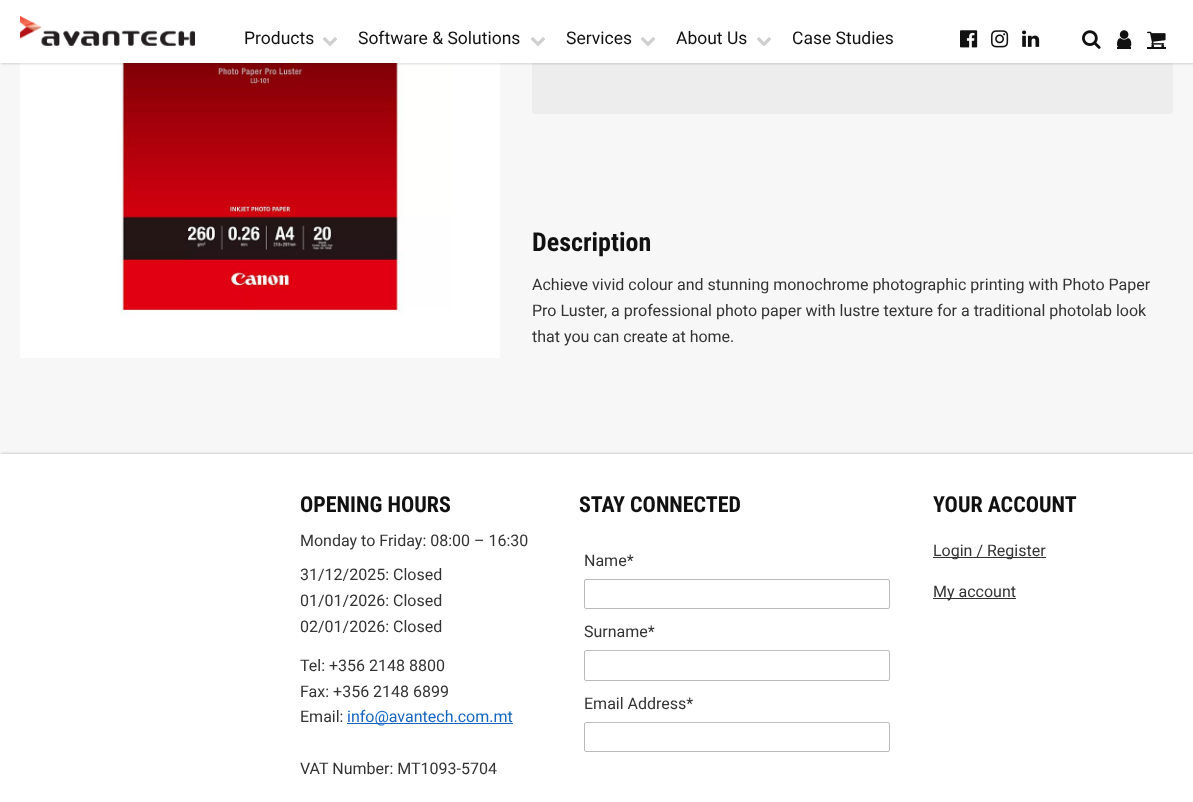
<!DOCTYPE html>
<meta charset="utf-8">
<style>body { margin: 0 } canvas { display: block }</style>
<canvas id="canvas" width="1193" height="802"></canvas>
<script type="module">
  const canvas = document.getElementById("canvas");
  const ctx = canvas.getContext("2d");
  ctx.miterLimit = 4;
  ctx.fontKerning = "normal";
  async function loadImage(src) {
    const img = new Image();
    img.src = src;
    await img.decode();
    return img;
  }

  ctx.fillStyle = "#f7f7f7";
  ctx.fillRect(0, 0, 1193, 802);
  ctx.drawImage(await loadImage("img9.png"), 20, 63, 480, 295);
  ctx.fillStyle = "#ededed";
  ctx.beginPath();
  ctx.roundRect(532, -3, 641, 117, 3);
  ctx.fill();
  ctx.fillStyle = "rgba(0, 0, 0, 0.15)";
  ctx.filter = "blur(1px)";
  ctx.beginPath();
  ctx.rect(1, 1, 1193, 63);
  ctx.fill();
  ctx.filter = "none";
  ctx.fillStyle = "#ffffff";
  ctx.fillRect(0, 0, 1193, 63);
  ctx.drawImage(await loadImage("img1.png"), 20, 16, 175, 30);
  ctx.font = "17.5px Roboto";
  ctx.fillStyle = "#111111";
  ctx.fillText("Products", 244, 44);
  ctx.drawImage(await loadImage("img2.png"), 323, 37, 14, 9);
  ctx.fillText("Software & Solutions", 358, 44);
  ctx.drawImage(await loadImage("img2.png"), 531, 37, 14, 9);
  ctx.fillText("Services", 566, 44);
  ctx.drawImage(await loadImage("img2.png"), 641, 37, 14, 9);
  ctx.fillText("About Us", 676, 44);
  ctx.drawImage(await loadImage("img2.png"), 757, 37, 14, 9);
  ctx.fillText("Case Studies", 792, 44);
  ctx.drawImage(await loadImage("img3.png"), 960, 30, 18, 18);
  ctx.drawImage(await loadImage("img4.png"), 991, 30, 18, 18);
  ctx.drawImage(await loadImage("img5.png"), 1022, 30, 18, 17);
  ctx.drawImage(await loadImage("img6.png"), 1082, 30, 19, 19);
  ctx.drawImage(await loadImage("img7.png"), 1117, 30, 15, 17);
  ctx.fillRect(1117, 47, 14, 2);
  ctx.drawImage(await loadImage("img8.png"), 1147, 31, 19, 16);
  ctx.fillRect(1147, 47, 19, 2);
  ctx.font = "bold 26px Roboto Condensed";
  ctx.fillText("Description", 532, 251);
  ctx.font = "16px Roboto";
  ctx.fillStyle = "#333333";
  ctx.fillText("Achieve vivid colour and stunning monochrome photographic printing with Photo Paper", 532, 290);
  ctx.fillText("Pro Luster, a professional photo paper with lustre texture for a traditional photolab look", 532, 316);
  ctx.fillText("that you can create at home.", 532, 342);
  ctx.fillStyle = "rgba(0, 0, 0, 0.15)";
  ctx.filter = "blur(1px)";
  ctx.beginPath();
  ctx.rect(1, 453, 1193, 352);
  ctx.fill();
  ctx.filter = "none";
  ctx.fillStyle = "#ffffff";
  ctx.fillRect(0, 454, 1193, 348);
  ctx.font = "bold 22px Roboto Condensed";
  ctx.fillStyle = "#111111";
  ctx.fillText("OPENING HOURS", 300, 512);
  ctx.font = "16px Roboto";
  ctx.fillStyle = "#333333";
  ctx.fillText("Monday to Friday: 08:00 – 16:30", 300, 546);
  ctx.fillText("31/12/2025: Closed", 300, 580);
  ctx.fillText("01/01/2026: Closed", 300, 606);
  ctx.fillText("02/01/2026: Closed", 300, 632);
  ctx.fillText("Tel: +356 2148 8800", 300, 671);
  ctx.fillText("Fax: +356 2148 6899", 300, 697);
  ctx.fillText("Email:", 300, 722);
  ctx.fillStyle = "#1565c0";
  ctx.fillRect(347, 723, 166, 1);
  ctx.fillText("info@avantech.com.mt", 347, 722);
  ctx.fillStyle = "#333333";
  ctx.fillText("VAT Number: MT1093-5704", 300, 774);
  ctx.font = "bold 22px Roboto Condensed";
  ctx.fillStyle = "#111111";
  ctx.fillText("STAY CONNECTED", 579, 512);
  ctx.font = "16px Roboto";
  ctx.fillStyle = "#333333";
  ctx.fillText("Name*", 584, 566);
  ctx.beginPath();
  ctx.roundRect(584.5, 579.5, 305, 29, 1.5);
  ctx.strokeStyle = "#bbbbbb";
  ctx.stroke();
  ctx.fillText("Surname*", 584, 637);
  ctx.beginPath();
  ctx.roundRect(584.5, 650.5, 305, 30, 1.5);
  ctx.stroke();
  ctx.fillText("Email Address*", 584, 709);
  ctx.beginPath();
  ctx.roundRect(584.5, 722.5, 305, 29, 1.5);
  ctx.stroke();
  ctx.font = "bold 22px Roboto Condensed";
  ctx.fillStyle = "#111111";
  ctx.fillText("YOUR ACCOUNT", 933, 512);
  ctx.fillStyle = "#333333";
  ctx.fillRect(933, 557, 113, 1);
  ctx.font = "16px Roboto";
  ctx.fillText("Login / Register", 933, 556);
  ctx.fillRect(933, 598, 83, 1);
  ctx.fillText("My account", 933, 597);
</script>
